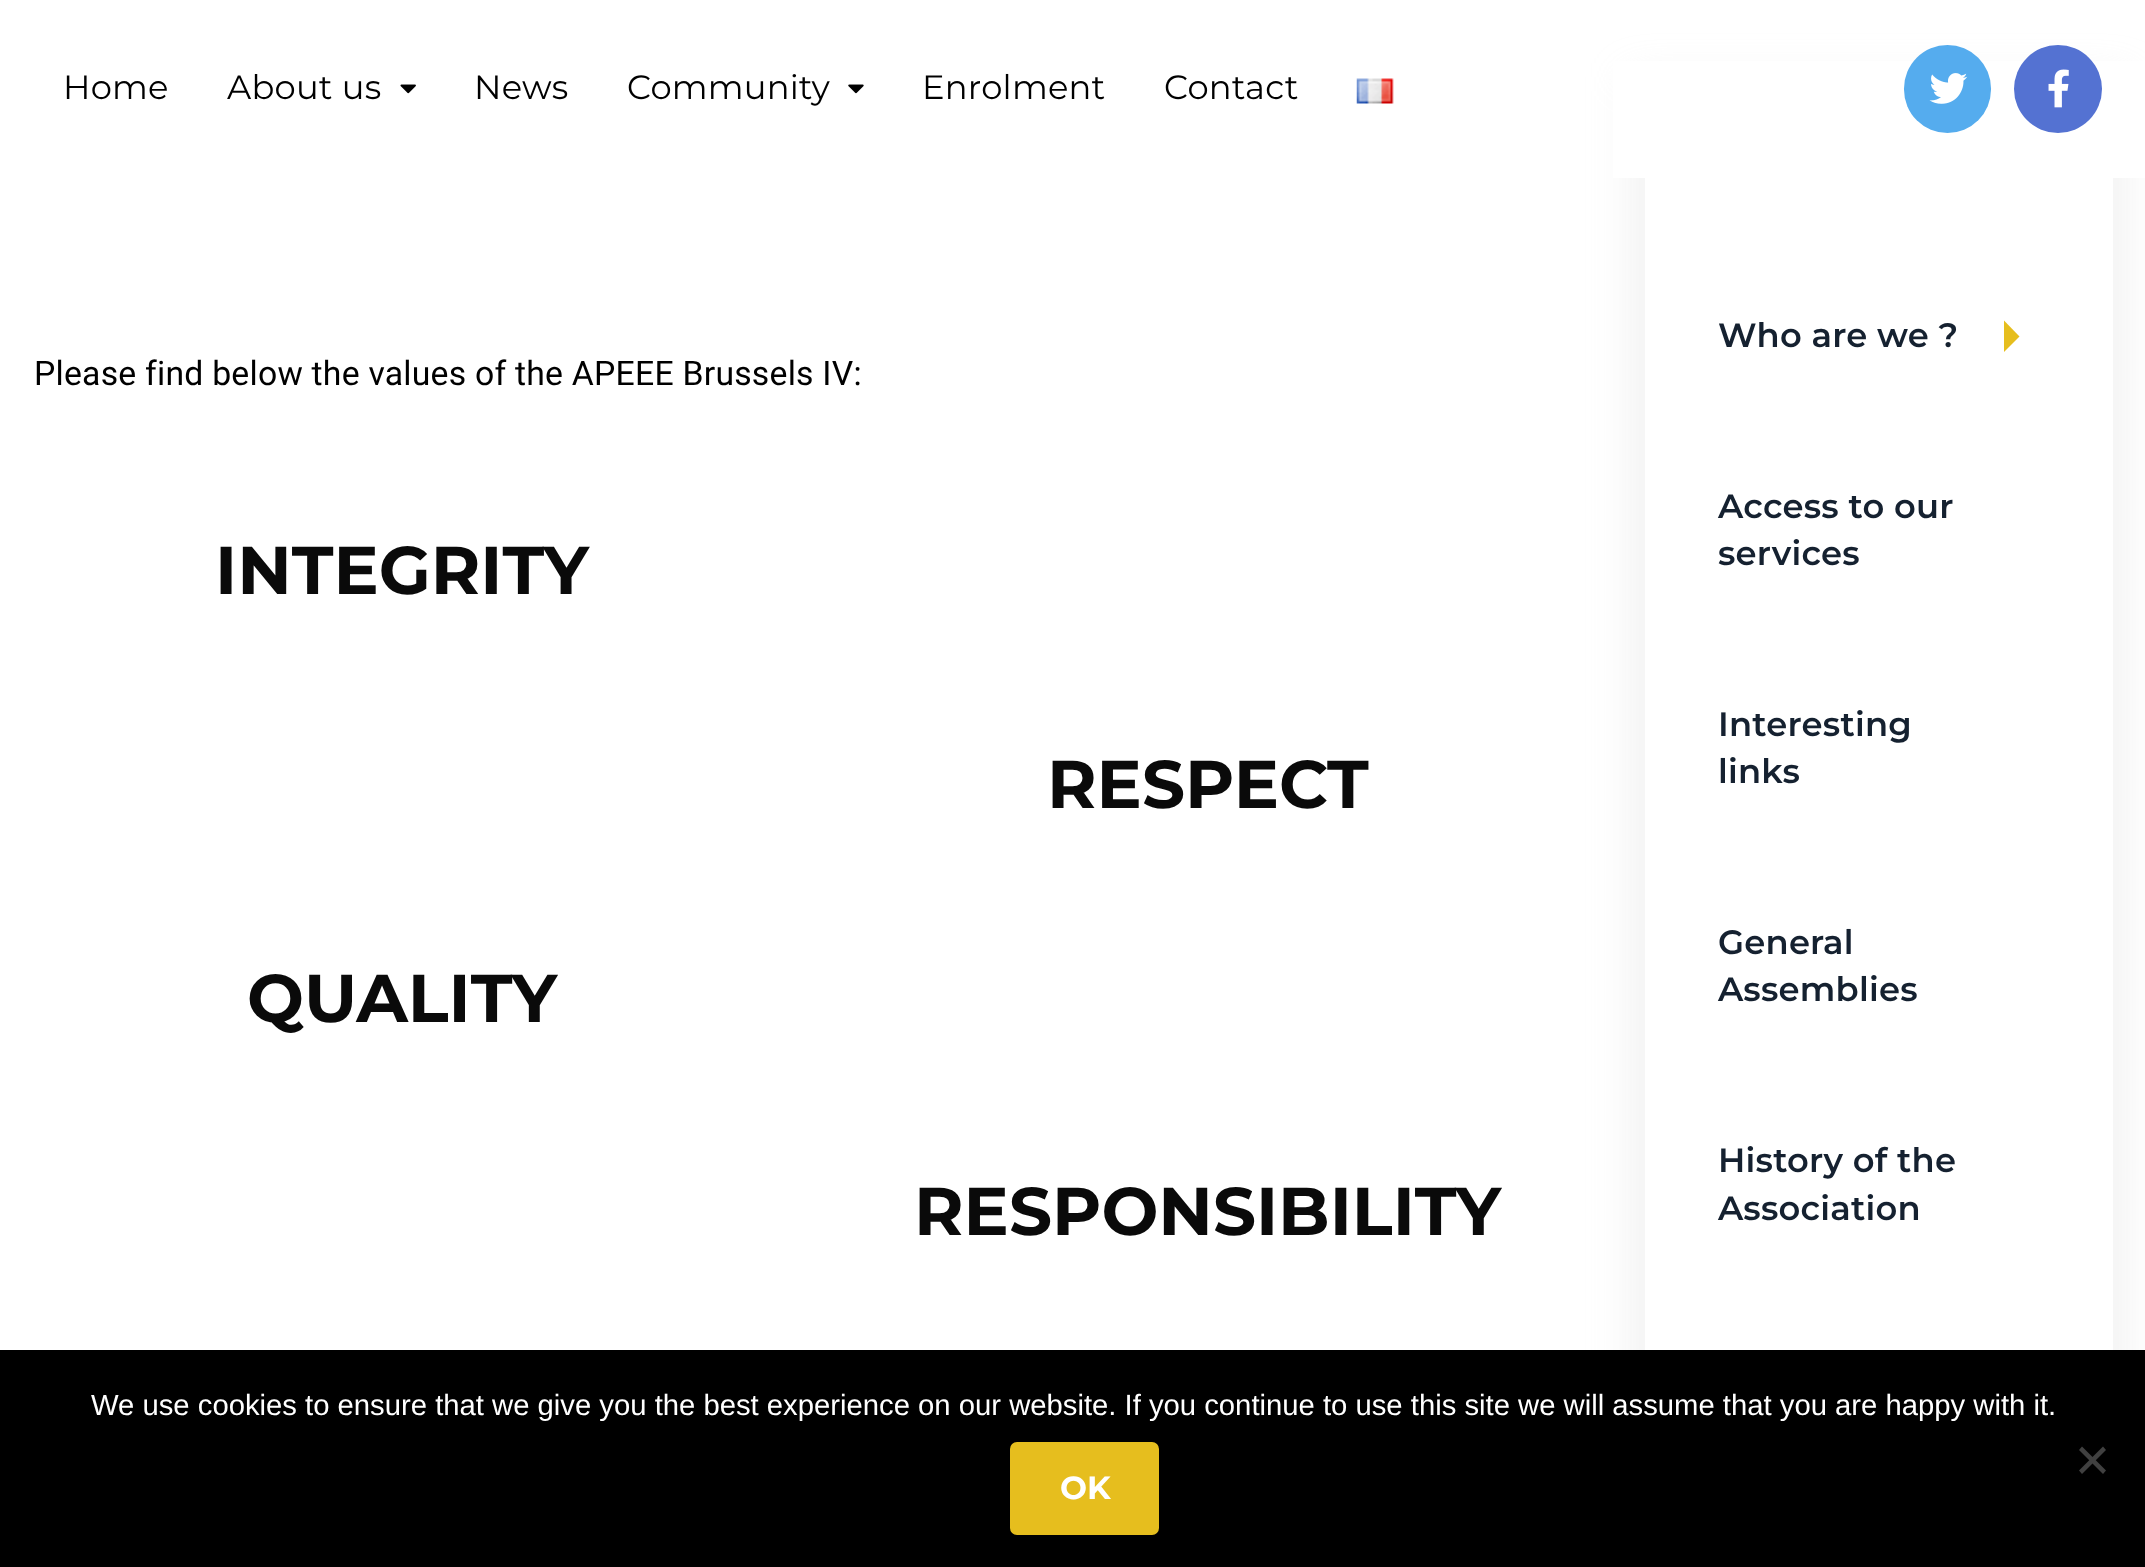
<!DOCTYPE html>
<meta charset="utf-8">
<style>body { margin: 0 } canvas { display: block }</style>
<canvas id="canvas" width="2145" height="1567"></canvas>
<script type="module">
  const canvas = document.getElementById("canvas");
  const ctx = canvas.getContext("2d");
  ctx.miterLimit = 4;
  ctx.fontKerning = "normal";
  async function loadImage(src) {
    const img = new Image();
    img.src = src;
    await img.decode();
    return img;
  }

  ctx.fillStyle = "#ffffff";
  ctx.fillRect(0, 0, 2145, 1567);
  ctx.fillStyle = "rgba(212, 212, 212, 0.28)";
  ctx.filter = "blur(20px)";
  ctx.beginPath();
  ctx.rect(1629, 77, 500, 1451);
  ctx.fill();
  ctx.filter = "none";
  ctx.fillStyle = "#ffffff";
  ctx.fillRect(1613, 61, 532, 117);
  ctx.letterSpacing = "0.23px";
  ctx.font = "33.75px Montserrat";
  ctx.fillStyle = "#000000";
  ctx.fillText("Home", 63, 99);
  ctx.fillText("About us", 227, 99);
  ctx.drawImage(await loadImage("img1.png"), 400, 84, 16, 10);
  ctx.fillText("News", 474, 99);
  ctx.fillText("Community", 627, 99);
  ctx.drawImage(await loadImage("img2.png"), 848, 84, 16, 10);
  ctx.fillText("Enrolment", 922, 99);
  ctx.fillText("Contact", 1164, 99);
  ctx.drawImage(await loadImage("img3.png"), 1356, 78, 38, 26);
  ctx.fillStyle = "#55acee";
  ctx.beginPath();
  ctx.roundRect(1904, 45, 87, 88, 43.5);
  ctx.fill();
  ctx.drawImage(await loadImage("img4.png"), 1929, 73, 39, 31);
  ctx.fillStyle = "#5472d2";
  ctx.beginPath();
  ctx.arc(2058, 89, 44, 0, Math.PI * 2);
  ctx.fill();
  ctx.drawImage(await loadImage("img5.png"), 2048, 69, 21, 39);
  ctx.font = "33.75px Roboto";
  ctx.fillStyle = "#000000";
  ctx.fillText("Please find below the values of the APEEE Brussels IV:", 34, 385);
  ctx.letterSpacing = "0px";
  ctx.font = "bold 67.5px Montserrat";
  ctx.fillStyle = "#0a0a0a";
  ctx.fillText("INTEGRITY", 215, 594);
  ctx.fillText("RESPECT", 1047, 808);
  ctx.fillText("QUALITY", 247, 1022);
  ctx.fillText("RESPONSIBILITY", 914, 1235);
  ctx.fillStyle = "#ffffff";
  ctx.fillRect(1645, 178, 468, 1172);
  ctx.letterSpacing = "0.23px";
  ctx.font = "600 33.75px Montserrat";
  ctx.fillStyle = "#152130";
  ctx.fillText("Who are we ?", 1718, 347);
  ctx.fillStyle = "#e6be1e";
  ctx.beginPath();
  ctx.moveTo(2004, 352);
  ctx.lineTo(2019.5, 336.5);
  ctx.lineTo(2004, 320.5);
  ctx.closePath();
  ctx.fill();
  ctx.fillStyle = "#152130";
  ctx.fillText("Access to our", 1718, 518);
  ctx.fillText("services", 1718, 565);
  ctx.fillText("Interesting", 1718, 736);
  ctx.fillText("links", 1718, 783);
  ctx.fillText("General", 1718, 954);
  ctx.fillText("Assemblies", 1718, 1001);
  ctx.fillText("History of the", 1718, 1172);
  ctx.fillText("Association", 1718, 1220);
  ctx.fillStyle = "#000000";
  ctx.fillRect(0, 1350, 2145, 217);
  ctx.letterSpacing = "0px";
  ctx.font = "29.25px Liberation Sans";
  ctx.fillStyle = "#ffffff";
  ctx.fillText("We use cookies to ensure that we give you the best experience on our website. If you continue to use this site we will assume that you are happy with it.", 91, 1415);
  ctx.fillStyle = "#404040";
  ctx.beginPath();
  ctx.moveTo(2103, 1446.5);
  ctx.lineTo(2106, 1450);
  ctx.lineTo(2082, 1474);
  ctx.lineTo(2079, 1470.5);
  ctx.closePath();
  ctx.fill();
  ctx.beginPath();
  ctx.moveTo(2079, 1450);
  ctx.lineTo(2082, 1446.5);
  ctx.lineTo(2106, 1470.5);
  ctx.lineTo(2103, 1474);
  ctx.closePath();
  ctx.fill();
  ctx.fillStyle = "#e6be1e";
  ctx.beginPath();
  ctx.roundRect(1011, 1443, 147, 91, 6);
  ctx.fill();
  ctx.strokeStyle = "#e6be1e";
  ctx.lineWidth = 2;
  ctx.stroke();
  ctx.font = "bold 32px Montserrat";
  ctx.fillStyle = "#ffffff";
  ctx.fillText("OK", 1060, 1499);
</script>
